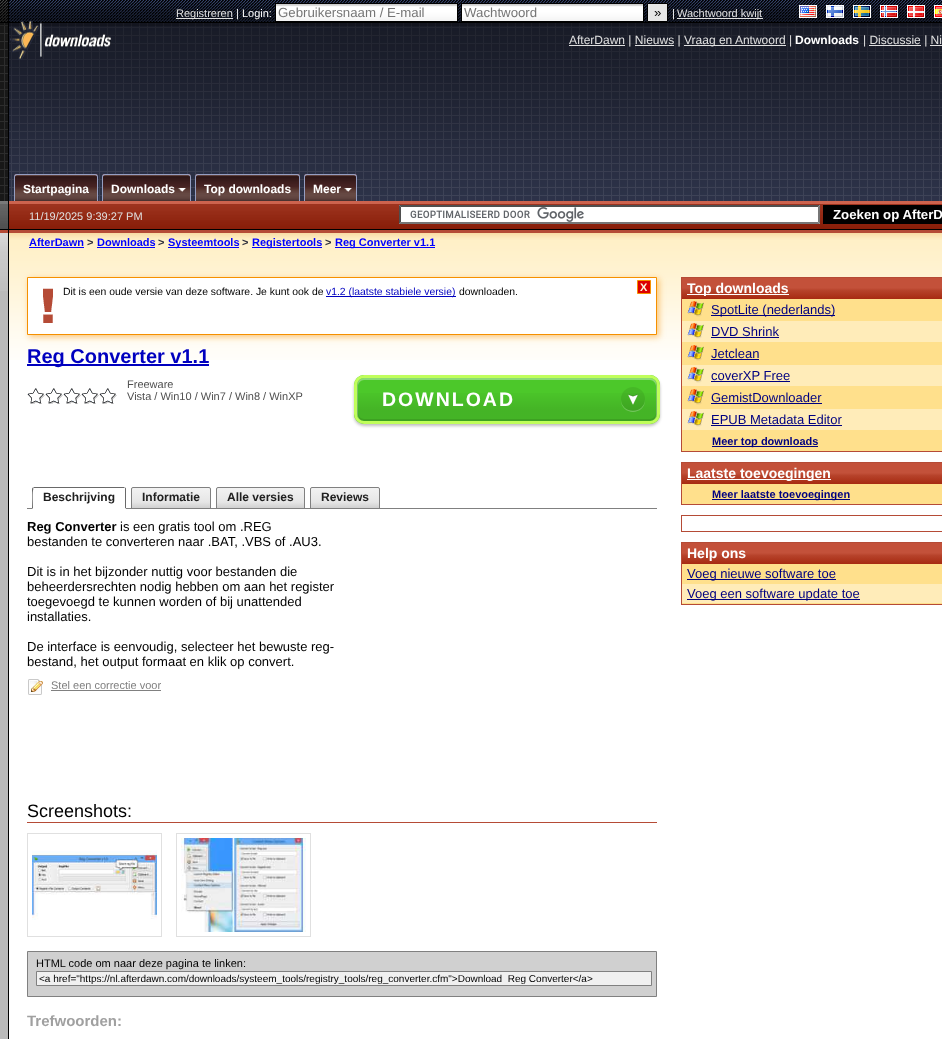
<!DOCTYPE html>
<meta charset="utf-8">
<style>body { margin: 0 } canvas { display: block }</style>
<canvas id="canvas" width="942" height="1039"></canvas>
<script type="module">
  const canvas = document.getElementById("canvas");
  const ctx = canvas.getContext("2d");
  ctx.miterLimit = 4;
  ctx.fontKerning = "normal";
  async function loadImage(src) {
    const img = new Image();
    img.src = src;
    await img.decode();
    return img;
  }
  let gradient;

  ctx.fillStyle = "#ffffff";
  ctx.fillRect(0, 0, 942, 1039);
  ctx.drawImage(await loadImage("img1.png"), 0, 0, 8, 23);
  ctx.drawImage(await loadImage("img2.png"), 9, 0, 933, 23);
  ctx.fillStyle = "#000000";
  ctx.fillRect(8, 0, 1, 201);
  ctx.fillStyle = "#e0e0e0";
  ctx.fillRect(176, 18, 57, 1);
  ctx.font = "11px Liberation Sans";
  ctx.fillText("Registreren", 176, 17);
  ctx.fillStyle = "#ffffff";
  ctx.fillText("| Login:", 236, 17);
  ctx.drawImage(await loadImage("img3.png"), 276, 4, 181, 17);
  ctx.strokeStyle = "#000000";
  ctx.strokeRect(275.5, 3.5, 182, 18);
  ctx.font = "13.25px Liberation Sans";
  ctx.fillStyle = "#757575";
  ctx.fillText("Gebruikersnaam / E-mail", 278, 17);
  ctx.drawImage(await loadImage("img3.png"), 462, 4, 181, 17);
  ctx.strokeRect(461.5, 3.5, 182, 18);
  ctx.fillText("Wachtwoord", 464, 17);
  ctx.fillStyle = "#e6e6e6";
  ctx.beginPath();
  ctx.rect(647.5, 3.5, 20, 18);
  ctx.fill();
  ctx.stroke();
  ctx.fillStyle = "#000000";
  ctx.fillText("»", 654, 17);
  ctx.font = "11px Liberation Sans";
  ctx.fillStyle = "#ffffff";
  ctx.fillText("|", 672, 17);
  ctx.fillStyle = "#e0e0e0";
  ctx.fillRect(677, 18, 86, 1);
  ctx.fillText("Wachtwoord kwijt", 677, 17);
  ctx.drawImage(await loadImage("img4.png"), 800, 6, 16, 11);
  ctx.strokeStyle = "#ffffff";
  ctx.strokeRect(799.5, 5.5, 17, 12);
  ctx.drawImage(await loadImage("img5.png"), 827, 6, 16, 11);
  ctx.strokeRect(826.5, 5.5, 17, 12);
  ctx.drawImage(await loadImage("img6.png"), 854, 6, 16, 11);
  ctx.strokeRect(853.5, 5.5, 17, 12);
  ctx.drawImage(await loadImage("img7.png"), 881, 6, 16, 11);
  ctx.strokeRect(880.5, 5.5, 17, 12);
  ctx.drawImage(await loadImage("img8.png"), 908, 6, 16, 11);
  ctx.strokeRect(907.5, 5.5, 17, 12);
  ctx.drawImage(await loadImage("img9.png"), 935, 6, 7, 11);
  ctx.strokeRect(934.5, 5.5, 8, 12);
  ctx.fillStyle = "#181818";
  ctx.fillRect(0, 23, 8, 178);
  ctx.drawImage(await loadImage("img10.png"), 0, 23, 8, 178);
  ctx.fillStyle = "#31374f";
  ctx.fillRect(9, 23, 933, 178);
  ctx.drawImage(await loadImage("img11.png"), 9, 23, 933, 178);
  ctx.drawImage(await loadImage("img13.png"), 9, 23, 933, 178);
  ctx.fillStyle = "rgba(0, 0, 0, 0.2)";
  ctx.fillRect(0, 23, 942, 3);
  ctx.drawImage(await loadImage("img12.png"), 10, 21, 102, 39);
  ctx.fillStyle = "#e0e0e0";
  ctx.fillRect(569, 45, 56, 1);
  ctx.font = "12px Liberation Sans";
  ctx.fillText("AfterDawn | Nieuws |", 569, 44);
  ctx.fillRect(684, 45, 102, 1);
  ctx.fillText("Vraag en Antwoord |", 684, 44);
  ctx.font = "bold 12px Liberation Sans";
  ctx.fillStyle = "#ffffff";
  ctx.fillText("Downloads", 795, 44);
  ctx.font = "12px Liberation Sans";
  ctx.fillStyle = "#e0e0e0";
  ctx.fillText("| Discussie | Ni", 863, 44);
  ctx.fillRect(635, 45, 39, 1);
  ctx.fillRect(869, 45, 52, 1);
  ctx.fillRect(930, 45, 12, 1);
  ctx.drawImage(await loadImage("img14.png"), 14, 174, 84, 27);
  ctx.fillStyle = "#959ec2";
  ctx.beginPath();
  ctx.moveTo(17, 174);
  ctx.lineTo(95, 174);
  ctx.bezierCurveTo(97, 174, 98, 175, 98, 177);
  ctx.lineTo(98, 201);
  ctx.lineTo(14, 201);
  ctx.lineTo(14, 177);
  ctx.bezierCurveTo(14, 175, 15, 174, 17, 174);
  ctx.closePath();
  ctx.moveTo(17, 175);
  ctx.lineTo(95, 175);
  ctx.bezierCurveTo(96, 175, 97, 176, 97, 177);
  ctx.lineTo(97, 201);
  ctx.lineTo(15, 201);
  ctx.lineTo(15, 177);
  ctx.bezierCurveTo(15, 176, 16, 175, 17, 175);
  ctx.closePath();
  ctx.fill("evenodd");
  ctx.font = "bold 12px Liberation Sans";
  ctx.fillStyle = "#ffffff";
  ctx.fillText("Startpagina", 23, 193);
  ctx.drawImage(await loadImage("img15.png"), 102, 174, 89, 27);
  ctx.fillStyle = "#959ec2";
  ctx.beginPath();
  ctx.moveTo(105, 174);
  ctx.lineTo(188, 174);
  ctx.bezierCurveTo(190, 174, 191, 175, 191, 177);
  ctx.lineTo(191, 201);
  ctx.lineTo(102, 201);
  ctx.lineTo(102, 177);
  ctx.bezierCurveTo(102, 175, 103, 174, 105, 174);
  ctx.closePath();
  ctx.moveTo(105, 175);
  ctx.lineTo(188, 175);
  ctx.bezierCurveTo(189, 175, 190, 176, 190, 177);
  ctx.lineTo(190, 201);
  ctx.lineTo(103, 201);
  ctx.lineTo(103, 177);
  ctx.bezierCurveTo(103, 176, 104, 175, 105, 175);
  ctx.closePath();
  ctx.fill("evenodd");
  ctx.fillStyle = "#ffffff";
  ctx.fillText("Downloads", 111, 193);
  ctx.drawImage(await loadImage("img16.png"), 195, 174, 105, 27);
  ctx.fillStyle = "#959ec2";
  ctx.beginPath();
  ctx.moveTo(198, 174);
  ctx.lineTo(297, 174);
  ctx.bezierCurveTo(299, 174, 300, 175, 300, 177);
  ctx.lineTo(300, 201);
  ctx.lineTo(195, 201);
  ctx.lineTo(195, 177);
  ctx.bezierCurveTo(195, 175, 196, 174, 198, 174);
  ctx.closePath();
  ctx.moveTo(198, 175);
  ctx.lineTo(297, 175);
  ctx.bezierCurveTo(298, 175, 299, 176, 299, 177);
  ctx.lineTo(299, 201);
  ctx.lineTo(196, 201);
  ctx.lineTo(196, 177);
  ctx.bezierCurveTo(196, 176, 197, 175, 198, 175);
  ctx.closePath();
  ctx.fill("evenodd");
  ctx.fillStyle = "#ffffff";
  ctx.fillText("Top downloads", 204, 193);
  ctx.drawImage(await loadImage("img17.png"), 304, 174, 53, 27);
  ctx.fillStyle = "#959ec2";
  ctx.beginPath();
  ctx.moveTo(307, 174);
  ctx.lineTo(354, 174);
  ctx.bezierCurveTo(356, 174, 357, 175, 357, 177);
  ctx.lineTo(357, 201);
  ctx.lineTo(304, 201);
  ctx.lineTo(304, 177);
  ctx.bezierCurveTo(304, 175, 305, 174, 307, 174);
  ctx.closePath();
  ctx.moveTo(307, 175);
  ctx.lineTo(354, 175);
  ctx.bezierCurveTo(355, 175, 356, 176, 356, 177);
  ctx.lineTo(356, 201);
  ctx.lineTo(305, 201);
  ctx.lineTo(305, 177);
  ctx.bezierCurveTo(305, 176, 306, 175, 307, 175);
  ctx.closePath();
  ctx.fill("evenodd");
  ctx.fillStyle = "#ffffff";
  ctx.fillText("Meer", 313, 193);
  ctx.drawImage(await loadImage("img18.png"), 0, 201, 8, 29);
  ctx.drawImage(await loadImage("img19.png"), 9, 201, 933, 28);
  ctx.fillStyle = "#000000";
  ctx.fillRect(8, 229, 934, 1);
  ctx.fillRect(8, 201, 1, 838);
  ctx.font = "11px Liberation Sans";
  ctx.fillStyle = "#e0e0e0";
  ctx.fillText("11/19/2025 9:39:27 PM", 29, 220);
  ctx.fillStyle = "#ffffff";
  ctx.fillRect(399, 205, 421, 19);
  ctx.drawImage(await loadImage("img20.png"), 410, 207, 174, 15);
  ctx.fillStyle = "#4f4f4f";
  ctx.beginPath();
  ctx.moveTo(399, 205);
  ctx.lineTo(820, 205);
  ctx.lineTo(818, 207);
  ctx.lineTo(401, 207);
  ctx.closePath();
  ctx.fill();
  ctx.fillStyle = "#767676";
  ctx.beginPath();
  ctx.moveTo(820, 205);
  ctx.lineTo(820, 224);
  ctx.lineTo(818, 222);
  ctx.lineTo(818, 207);
  ctx.closePath();
  ctx.fill();
  ctx.beginPath();
  ctx.moveTo(820, 224);
  ctx.lineTo(399, 224);
  ctx.lineTo(401, 222);
  ctx.lineTo(818, 222);
  ctx.closePath();
  ctx.fill();
  ctx.fillStyle = "#4f4f4f";
  ctx.beginPath();
  ctx.moveTo(399, 224);
  ctx.lineTo(399, 205);
  ctx.lineTo(401, 207);
  ctx.lineTo(401, 222);
  ctx.closePath();
  ctx.fill();
  ctx.fillStyle = "#000000";
  ctx.fillRect(823, 205, 119, 19);
  ctx.font = "bold 13.25px Liberation Sans";
  ctx.fillStyle = "#ffffff";
  ctx.fillText("Zoeken op AfterD", 833, 219);
  ctx.fillStyle = "#bababa";
  ctx.fillRect(0, 291, 8, 748);
  ctx.drawImage(await loadImage("img21.png"), 0, 230, 8, 61);
  ctx.drawImage(await loadImage("img22.png"), 9, 230, 933, 130);
  ctx.font = "bold 11px Liberation Sans";
  ctx.fillStyle = "#0000ff";
  ctx.fillText("AfterDawn", 29, 246);
  ctx.fillRect(29, 247, 55, 1);
  ctx.fillStyle = "#30303d";
  ctx.fillText(">", 87, 246);
  ctx.fillStyle = "#0000ff";
  ctx.fillText("Downloads", 97, 246);
  ctx.fillRect(97, 247, 58, 1);
  ctx.fillStyle = "#30303d";
  ctx.fillText(">", 158, 246);
  ctx.fillStyle = "#0000ff";
  ctx.fillRect(168, 247, 71, 1);
  ctx.fillText("Systeemtools", 168, 246);
  ctx.fillStyle = "#30303d";
  ctx.fillText(">", 242, 246);
  ctx.fillStyle = "#0000ff";
  ctx.fillRect(252, 247, 70, 1);
  ctx.fillText("Registertools", 252, 246);
  ctx.fillStyle = "#30303d";
  ctx.fillText(">", 325, 246);
  ctx.fillStyle = "#0000ff";
  ctx.fillRect(335, 247, 100, 1);
  ctx.fillText("Reg Converter v1.1", 335, 246);
  ctx.fillStyle = "rgba(245, 144, 0, 0.5)";
  ctx.filter = "blur(3px)";
  ctx.beginPath();
  ctx.rect(29, 279, 630, 58);
  ctx.fill();
  ctx.filter = "none";
  ctx.fillStyle = "#ffffff";
  ctx.beginPath();
  ctx.rect(27.5, 277.5, 629, 57);
  ctx.fill();
  ctx.strokeStyle = "#f59000";
  ctx.stroke();
  ctx.drawImage(await loadImage("img23.png"), 43, 288, 10, 35);
  ctx.font = "10.4px Liberation Sans";
  ctx.fillStyle = "#000000";
  ctx.fillText("Dit is een oude versie van deze software. Je kunt ook de", 63, 295);
  ctx.fillStyle = "#0000bf";
  ctx.fillRect(326, 296, 130, 1);
  ctx.fillText("v1.2 (laatste stabiele versie)", 326, 295);
  ctx.fillStyle = "#000000";
  ctx.fillText("downloaden.", 459, 295);
  ctx.fillStyle = "#dd0000";
  ctx.beginPath();
  ctx.rect(637.5, 280.5, 13, 13);
  ctx.fill();
  ctx.stroke();
  ctx.font = "bold 11px Liberation Sans";
  ctx.fillStyle = "#fdf8e0";
  ctx.fillText("X", 640, 291);
  ctx.fillStyle = "#0000bf";
  ctx.fillRect(27, 364, 182, 2);
  ctx.font = "bold 20px Liberation Sans";
  ctx.fillText("Reg Converter v1.1", 27, 363);
  ctx.drawImage(await loadImage("img24.png"), 27, 388, 18, 16);
  ctx.drawImage(await loadImage("img24.png"), 45, 388, 18, 16);
  ctx.drawImage(await loadImage("img24.png"), 63, 388, 18, 16);
  ctx.drawImage(await loadImage("img24.png"), 81, 388, 18, 16);
  ctx.drawImage(await loadImage("img24.png"), 99, 388, 18, 16);
  ctx.font = "11px Liberation Sans";
  ctx.fillStyle = "#505050";
  ctx.fillText("Freeware", 127, 388);
  ctx.fillText("Vista / Win10 / Win7 / Win8 / WinXP", 127, 400);
  ctx.fillStyle = "rgba(0, 0, 0, 0.25)";
  ctx.filter = "blur(1.5px)";
  ctx.beginPath();
  ctx.roundRect(354, 377, 306, 49, 10);
  ctx.fill();
  ctx.filter = "none";
  ctx.fillStyle = "#4cc82a";
  ctx.beginPath();
  ctx.roundRect(354, 375, 306, 49, 10);
  ctx.fill();
  ctx.save();
  ctx.beginPath();
  ctx.roundRect(354, 375, 306, 49, 10);
  ctx.clip();
  gradient = ctx.createLinearGradient(507, 378, 507, 421);
  gradient.addColorStop(0, "rgba(0, 0, 0, 0)");
  gradient.addColorStop(0.25, "rgba(0, 0, 0, 0)");
  gradient.addColorStop(0.75, "rgba(0, 0, 0, 0.1)");
  gradient.addColorStop(1, "rgba(0, 0, 0, 0.1)");
  ctx.fillStyle = gradient;
  ctx.fillRect(354, 393, 306, 28);
  ctx.restore();
  ctx.fillStyle = "rgba(255, 255, 255, 0.35)";
  ctx.beginPath();
  ctx.moveTo(364, 380);
  ctx.lineTo(650, 380);
  ctx.bezierCurveTo(653, 380, 656, 383, 656, 386);
  ctx.lineTo(656, 415);
  ctx.bezierCurveTo(656, 418, 653, 421, 650, 421);
  ctx.bezierCurveTo(654, 421, 657, 418, 657, 414);
  ctx.lineTo(657, 385);
  ctx.bezierCurveTo(657, 381, 654, 378, 650, 378);
  ctx.lineTo(364, 378);
  ctx.bezierCurveTo(360, 378, 357, 381, 357, 385);
  ctx.lineTo(357, 414);
  ctx.bezierCurveTo(357, 418, 360, 421, 364, 421);
  ctx.bezierCurveTo(361, 421, 358, 418, 358, 415);
  ctx.lineTo(358, 386);
  ctx.bezierCurveTo(358, 383, 361, 380, 364, 380);
  ctx.closePath();
  ctx.fill();
  ctx.fillStyle = "rgba(0, 0, 0, 0.1)";
  ctx.beginPath();
  ctx.moveTo(364, 378);
  ctx.bezierCurveTo(360, 378, 357, 381, 357, 385);
  ctx.lineTo(357, 414);
  ctx.bezierCurveTo(357, 418, 360, 421, 364, 421);
  ctx.lineTo(650, 421);
  ctx.bezierCurveTo(654, 421, 657, 418, 657, 414);
  ctx.lineTo(657, 385);
  ctx.bezierCurveTo(657, 381, 654, 378, 650, 378);
  ctx.bezierCurveTo(653, 378, 656, 381, 656, 384);
  ctx.lineTo(656, 413);
  ctx.bezierCurveTo(656, 416, 653, 419, 650, 419);
  ctx.lineTo(364, 419);
  ctx.bezierCurveTo(361, 419, 358, 416, 358, 413);
  ctx.lineTo(358, 384);
  ctx.bezierCurveTo(358, 381, 361, 378, 364, 378);
  ctx.closePath();
  ctx.fill();
  ctx.beginPath();
  ctx.roundRect(355.5, 376.5, 303, 46, 8.5);
  ctx.strokeStyle = "#c0fe5b";
  ctx.lineWidth = 3;
  ctx.stroke();
  ctx.letterSpacing = "2px";
  ctx.font = "bold 19.5px Liberation Sans";
  ctx.fillStyle = "#ffffff";
  ctx.fillText("DOWNLOAD", 382, 406);
  ctx.fillStyle = "rgba(255, 255, 255, 0.25)";
  ctx.beginPath();
  ctx.moveTo(645, 399.5);
  ctx.bezierCurveTo(644.5, 414.5, 621.5, 414.5, 621, 399.5);
  ctx.bezierCurveTo(620.5, 416, 645.5, 416, 645, 399.5);
  ctx.closePath();
  ctx.fill();
  ctx.fillStyle = "rgba(0, 0, 0, 0.08)";
  ctx.beginPath();
  ctx.arc(633, 399, 12, 0, Math.PI * 2);
  ctx.fill();
  ctx.drawImage(await loadImage("img25.png"), 628, 394, 10, 11);
  ctx.fillStyle = "#808080";
  ctx.fillRect(27, 508, 630, 1);
  ctx.fillStyle = "#ffffff";
  ctx.beginPath();
  ctx.roundRect(32, 487, 94, 22, [2, 2, 0, 0]);
  ctx.fill();
  ctx.fillStyle = "#696969";
  ctx.beginPath();
  ctx.moveTo(34, 487);
  ctx.lineTo(33, 488);
  ctx.lineTo(125, 488);
  ctx.lineTo(124, 487);
  ctx.closePath();
  ctx.fill();
  ctx.beginPath();
  ctx.moveTo(126, 509);
  ctx.lineTo(126, 489);
  ctx.bezierCurveTo(126, 488.5, 126, 488, 125.5, 487.5);
  ctx.lineTo(125, 488);
  ctx.lineTo(125, 508);
  ctx.closePath();
  ctx.fill();
  ctx.fillStyle = "#ffffff";
  ctx.beginPath();
  ctx.moveTo(126, 509);
  ctx.lineTo(125, 508);
  ctx.lineTo(33, 508);
  ctx.lineTo(32, 509);
  ctx.closePath();
  ctx.fill();
  ctx.fillStyle = "#696969";
  ctx.beginPath();
  ctx.moveTo(32, 509);
  ctx.lineTo(33, 508);
  ctx.bezierCurveTo(33, 503, 32, 492, 33.5, 488.5);
  ctx.lineTo(32.5, 487.5);
  ctx.lineTo(32, 489);
  ctx.closePath();
  ctx.fill();
  ctx.letterSpacing = "0px";
  ctx.font = "bold 12px Liberation Sans";
  ctx.fillStyle = "#202020";
  ctx.fillText("Beschrijving", 43, 501);
  gradient = ctx.createLinearGradient(171, 488, 171, 508);
  gradient.addColorStop(0, "#f2f2f2");
  gradient.addColorStop(0.7, "#e6e6e6");
  gradient.addColorStop(1, "#d0d0d0");
  ctx.fillStyle = gradient;
  ctx.fillRect(131, 488, 80, 20);
  ctx.beginPath();
  ctx.roundRect(131.5, 487.5, 79, 21, [1.5, 1.5, 0, 0]);
  ctx.strokeStyle = "#808080";
  ctx.lineWidth = 1;
  ctx.stroke();
  ctx.fillStyle = "#202020";
  ctx.fillText("Informatie", 142, 501);
  gradient = ctx.createLinearGradient(261, 488, 261, 508);
  gradient.addColorStop(0, "#f2f2f2");
  gradient.addColorStop(0.7, "#e6e6e6");
  gradient.addColorStop(1, "#d0d0d0");
  ctx.fillStyle = gradient;
  ctx.fillRect(216, 488, 89, 20);
  ctx.beginPath();
  ctx.roundRect(216.5, 487.5, 88, 21, [1.5, 1.5, 0, 0]);
  ctx.stroke();
  ctx.fillStyle = "#202020";
  ctx.fillText("Alle versies", 227, 501);
  gradient = ctx.createLinearGradient(345, 488, 345, 508);
  gradient.addColorStop(0, "#f2f2f2");
  gradient.addColorStop(0.7, "#e6e6e6");
  gradient.addColorStop(1, "#d0d0d0");
  ctx.fillStyle = gradient;
  ctx.fillRect(310, 488, 70, 20);
  ctx.beginPath();
  ctx.roundRect(310.5, 487.5, 69, 21, [1.5, 1.5, 0, 0]);
  ctx.stroke();
  ctx.fillStyle = "#202020";
  ctx.fillText("Reviews", 321, 501);
  ctx.font = "bold 13px Liberation Sans";
  ctx.fillStyle = "#000000";
  ctx.fillText("Reg Converter", 27, 531);
  ctx.font = "13px Liberation Sans";
  ctx.fillText("is een gratis tool om .REG", 120, 531);
  ctx.fillText("bestanden te converteren naar .BAT, .VBS of .AU3.", 27, 546);
  ctx.fillText("Dit is in het bijzonder nuttig voor bestanden die", 27, 576);
  ctx.fillText("beheerdersrechten nodig hebben om aan het register", 27, 591);
  ctx.fillText("toegevoegd te kunnen worden of bij unattended", 27, 606);
  ctx.fillText("installaties.", 27, 621);
  ctx.fillText("De interface is eenvoudig, selecteer het bewuste reg-", 27, 651);
  ctx.fillText("bestand, het output formaat en klik op convert.", 27, 666);
  ctx.drawImage(await loadImage("img26.png"), 28, 679, 15, 16);
  ctx.font = "11px Liberation Sans";
  ctx.fillStyle = "#808080";
  ctx.fillText("Stel een correctie voor", 51, 689);
  ctx.fillRect(51, 690, 110, 1);
  ctx.fillStyle = "#b54b36";
  ctx.fillRect(27, 822, 630, 1);
  ctx.font = "18px Liberation Sans";
  ctx.fillStyle = "#000000";
  ctx.fillText("Screenshots:", 27, 817);
  ctx.strokeStyle = "#e0e0e0";
  ctx.strokeRect(27.5, 833.5, 134, 103);
  ctx.strokeRect(176.5, 833.5, 134, 103);
  ctx.drawImage(await loadImage("img27.png"), 32, 850, 125, 70);
  ctx.drawImage(await loadImage("img28.png"), 181, 838, 125, 94);
  ctx.fillStyle = "#d0d0d0";
  ctx.beginPath();
  ctx.rect(27.5, 951.5, 629, 45);
  ctx.fill();
  ctx.strokeStyle = "#808080";
  ctx.stroke();
  ctx.font = "11px Liberation Sans";
  ctx.fillStyle = "#000000";
  ctx.fillText("HTML code om naar deze pagina te linken:", 36, 967);
  ctx.fillStyle = "#f0f0f0";
  ctx.beginPath();
  ctx.rect(36.5, 971.5, 615, 14);
  ctx.fill();
  ctx.stroke();
  ctx.font = "10px Liberation Sans";
  ctx.fillStyle = "#000000";
  ctx.fillText("<a href=\"https://nl.afterdawn.com/downloads/systeem_tools/registry_tools/reg_converter.cfm\">Download  Reg Converter<\/a>", 39, 982);
  ctx.font = "bold 15px Liberation Sans";
  ctx.fillStyle = "#a0a0a0";
  ctx.fillText("Trefwoorden:", 27, 1026);
  ctx.strokeStyle = "#b54b36";
  ctx.strokeRect(681.5, 277.5, 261, 174);
  gradient = ctx.createLinearGradient(831, 278, 831, 299);
  gradient.addColorStop(0.47, "#c3513a");
  gradient.addColorStop(0.6, "#b6422a");
  gradient.addColorStop(1, "#a72a11");
  ctx.fillStyle = gradient;
  ctx.fillRect(682, 278, 260, 21);
  ctx.fillStyle = "#ffffff";
  ctx.fillRect(687, 294, 102, 1);
  ctx.font = "bold 14px Liberation Sans";
  ctx.fillText("Top downloads", 687, 293);
  ctx.fillStyle = "#ffe08c";
  ctx.fillRect(682, 299, 260, 152);
  ctx.drawImage(await loadImage("img29.png"), 687, 301, 17, 16);
  ctx.fillStyle = "#000080";
  ctx.fillRect(711, 315, 124, 1);
  ctx.font = "13px Liberation Sans";
  ctx.fillText("SpotLite (nederlands)", 711, 314);
  ctx.fillStyle = "#ffecb9";
  ctx.fillRect(682, 321, 260, 21);
  ctx.drawImage(await loadImage("img30.png"), 687, 323, 17, 16);
  ctx.fillStyle = "#000080";
  ctx.fillText("DVD Shrink", 711, 336);
  ctx.fillRect(711, 337, 68, 1);
  ctx.drawImage(await loadImage("img29.png"), 687, 345, 17, 16);
  ctx.fillText("Jetclean", 711, 358);
  ctx.fillRect(711, 359, 48, 1);
  ctx.fillStyle = "#ffecb9";
  ctx.fillRect(682, 365, 260, 21);
  ctx.drawImage(await loadImage("img30.png"), 687, 367, 17, 16);
  ctx.fillStyle = "#000080";
  ctx.fillText("coverXP Free", 711, 380);
  ctx.fillRect(711, 381, 79, 1);
  ctx.drawImage(await loadImage("img29.png"), 687, 389, 17, 16);
  ctx.fillText("GemistDownloader", 711, 402);
  ctx.fillRect(711, 403, 111, 1);
  ctx.fillStyle = "#ffecb9";
  ctx.fillRect(682, 409, 260, 21);
  ctx.drawImage(await loadImage("img30.png"), 687, 411, 17, 16);
  ctx.fillStyle = "#000080";
  ctx.fillText("EPUB Metadata Editor", 711, 424);
  ctx.fillRect(711, 425, 131, 1);
  ctx.fillRect(712, 446, 106, 1);
  ctx.font = "bold 11px Liberation Sans";
  ctx.fillText("Meer top downloads", 712, 445);
  ctx.strokeRect(681.5, 462.5, 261, 42);
  gradient = ctx.createLinearGradient(831, 463, 831, 484);
  gradient.addColorStop(0.47, "#c3513a");
  gradient.addColorStop(0.6, "#b6422a");
  gradient.addColorStop(1, "#a72a11");
  ctx.fillStyle = gradient;
  ctx.fillRect(682, 463, 260, 21);
  ctx.fillStyle = "#ffffff";
  ctx.fillRect(687, 479, 144, 1);
  ctx.font = "bold 14px Liberation Sans";
  ctx.fillText("Laatste toevoegingen", 687, 478);
  ctx.fillStyle = "#ffe08c";
  ctx.fillRect(682, 484, 260, 20);
  ctx.fillStyle = "#000080";
  ctx.fillRect(712, 499, 138, 1);
  ctx.font = "bold 11px Liberation Sans";
  ctx.fillText("Meer laatste toevoegingen", 712, 498);
  ctx.strokeRect(681.5, 515.5, 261, 16);
  ctx.strokeRect(681.5, 542.5, 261, 62);
  gradient = ctx.createLinearGradient(831, 543, 831, 564);
  gradient.addColorStop(0.47, "#c3513a");
  gradient.addColorStop(0.6, "#b6422a");
  gradient.addColorStop(1, "#a72a11");
  ctx.fillStyle = gradient;
  ctx.fillRect(682, 543, 260, 21);
  ctx.font = "bold 14px Liberation Sans";
  ctx.fillStyle = "#ffffff";
  ctx.fillText("Help ons", 687, 558);
  ctx.fillStyle = "#ffe08c";
  ctx.fillRect(682, 564, 260, 40);
  ctx.fillStyle = "#000080";
  ctx.fillRect(687, 579, 149, 1);
  ctx.font = "13px Liberation Sans";
  ctx.fillText("Voeg nieuwe software toe", 687, 578);
  ctx.fillStyle = "#ffecb9";
  ctx.fillRect(682, 584, 260, 19);
  ctx.fillStyle = "#000080";
  ctx.fillRect(687, 599, 173, 1);
  ctx.fillText("Voeg een software update toe", 687, 598);
</script>
